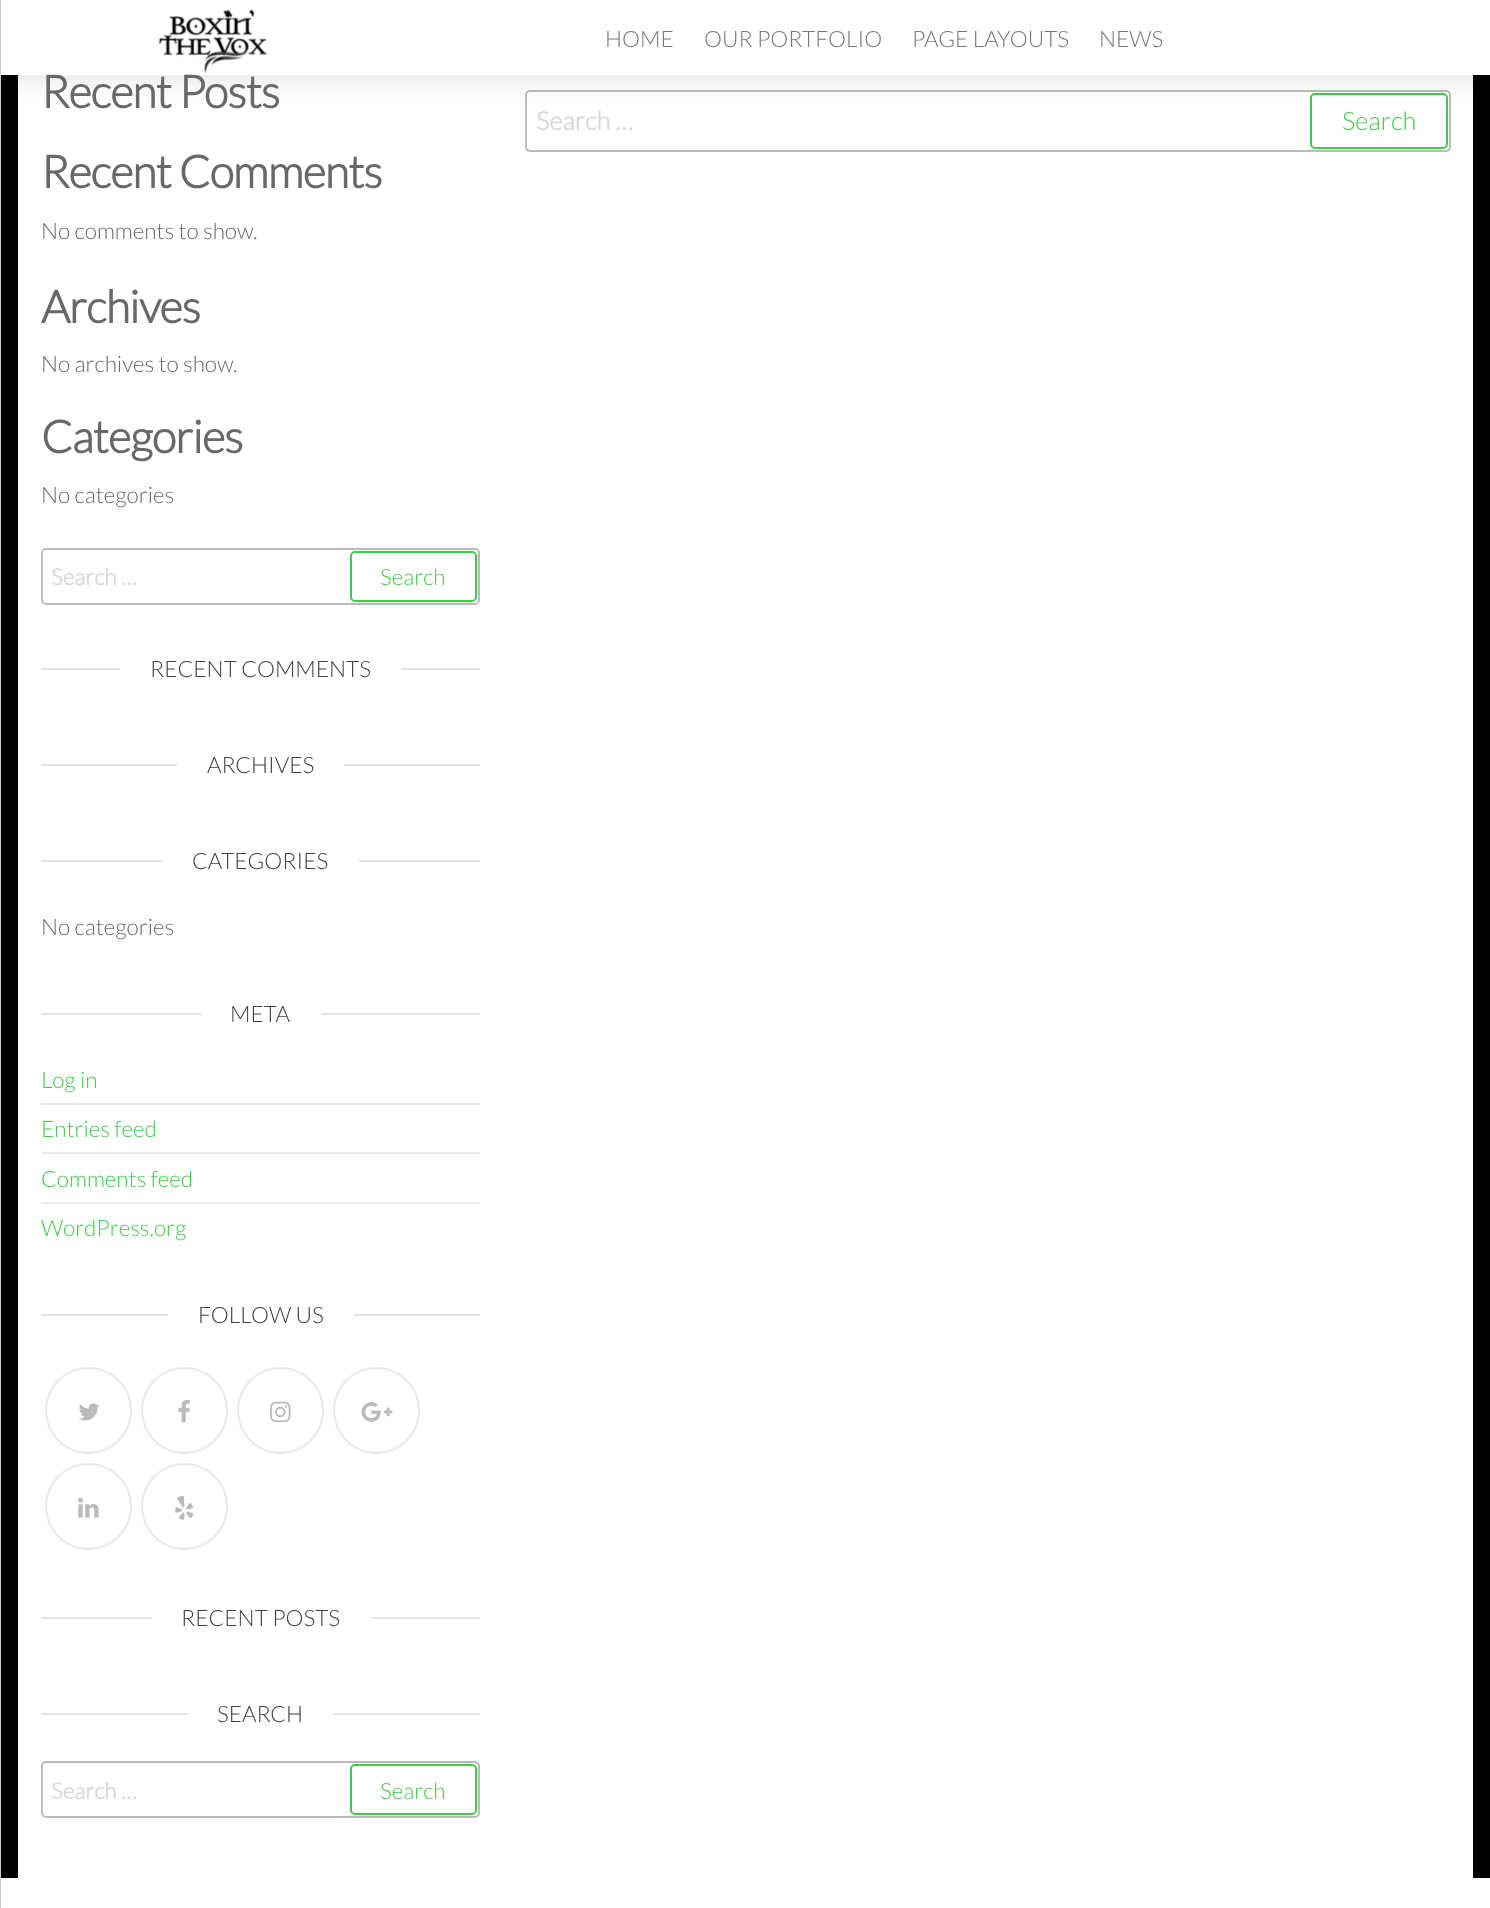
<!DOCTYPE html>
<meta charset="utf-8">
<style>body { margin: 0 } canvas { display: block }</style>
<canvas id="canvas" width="1490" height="1908"></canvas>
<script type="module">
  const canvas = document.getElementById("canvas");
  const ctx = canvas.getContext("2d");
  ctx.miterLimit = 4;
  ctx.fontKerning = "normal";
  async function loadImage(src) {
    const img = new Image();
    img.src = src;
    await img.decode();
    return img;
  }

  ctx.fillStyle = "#000000";
  ctx.fillRect(0, 0, 1490, 1908);
  ctx.fillStyle = "#ffffff";
  ctx.fillRect(18, 75, 1455, 1803);
  ctx.beginPath();
  ctx.roundRect(526, 91, 924, 60, 4);
  ctx.strokeStyle = "#bbbbbb";
  ctx.lineWidth = 2;
  ctx.stroke();
  ctx.beginPath();
  ctx.roundRect(1311, 94, 136, 54, 4);
  ctx.strokeStyle = "#3fcc46";
  ctx.stroke();
  ctx.fillStyle = "rgba(0, 0, 0, 0.1)";
  ctx.filter = "blur(12px)";
  ctx.beginPath();
  ctx.rect(0, 6, 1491, 75);
  ctx.fill();
  ctx.filter = "none";
  ctx.fillStyle = "#cbcbcb";
  ctx.fillRect(0, 0, 1, 1908);
  ctx.fillStyle = "#ffffff";
  ctx.fillRect(1, 0, 1489, 75);
  ctx.drawImage(await loadImage("img1.png"), 158, 9, 109, 64);
  ctx.font = "300 22.5px Lato";
  ctx.fillStyle = "#777777";
  ctx.fillText("HOME", 605, 47);
  ctx.fillText("OUR PORTFOLIO", 704, 47);
  ctx.fillText("PAGE LAYOUTS", 912, 47);
  ctx.fillText("NEWS", 1099, 47);
  ctx.letterSpacing = "-0.9px";
  ctx.font = "bold 45px Lato";
  ctx.fillStyle = "#686868";
  ctx.fillText("Recent Posts", 41, 108);
  ctx.fillText("Recent Comments", 41, 188);
  ctx.letterSpacing = "0px";
  ctx.font = "300 22.5px Lato";
  ctx.fillText("No comments to show.", 41, 239);
  ctx.letterSpacing = "-0.9px";
  ctx.font = "bold 45px Lato";
  ctx.fillText("Archives", 41, 323);
  ctx.letterSpacing = "0px";
  ctx.font = "300 22.5px Lato";
  ctx.fillText("No archives to show.", 41, 372);
  ctx.letterSpacing = "-0.9px";
  ctx.font = "bold 45px Lato";
  ctx.fillText("Categories", 41, 453);
  ctx.letterSpacing = "0px";
  ctx.font = "300 22.5px Lato";
  ctx.fillText("No categories", 41, 503);
  ctx.beginPath();
  ctx.roundRect(42, 549, 437, 55, 4);
  ctx.strokeStyle = "#bbbbbb";
  ctx.stroke();
  ctx.font = "bold 22.5px Lato";
  ctx.fillStyle = "#d7d7d7";
  ctx.fillText("Search …", 51, 585);
  ctx.beginPath();
  ctx.roundRect(351, 552, 125, 49, 4);
  ctx.strokeStyle = "#3fcc46";
  ctx.stroke();
  ctx.font = "300 22.5px Lato";
  ctx.fillStyle = "#3fcc46";
  ctx.fillText("Search", 380, 585);
  ctx.fillStyle = "#e2e2e2";
  ctx.fillRect(41, 668, 439, 2);
  ctx.fillStyle = "#ffffff";
  ctx.fillRect(120, 668, 281, 2);
  ctx.fillStyle = "#404040";
  ctx.fillText("RECENT COMMENTS", 150, 677);
  ctx.fillStyle = "#e2e2e2";
  ctx.fillRect(41, 764, 439, 2);
  ctx.fillStyle = "#ffffff";
  ctx.fillRect(177, 764, 167, 2);
  ctx.fillStyle = "#404040";
  ctx.fillText("ARCHIVES", 207, 773);
  ctx.fillStyle = "#e2e2e2";
  ctx.fillRect(41, 860, 439, 2);
  ctx.fillStyle = "#ffffff";
  ctx.fillRect(162, 860, 197, 2);
  ctx.fillStyle = "#404040";
  ctx.fillText("CATEGORIES", 192, 869);
  ctx.fillStyle = "#686868";
  ctx.fillText("No categories", 41, 935);
  ctx.fillStyle = "#e2e2e2";
  ctx.fillRect(41, 1013, 439, 2);
  ctx.fillStyle = "#ffffff";
  ctx.fillRect(201, 1013, 120, 2);
  ctx.fillStyle = "#404040";
  ctx.fillText("META", 230, 1022);
  ctx.fillStyle = "#ebebeb";
  ctx.fillRect(41, 1103, 439, 2);
  ctx.fillStyle = "#3fcc46";
  ctx.fillText("Log in", 41, 1088);
  ctx.fillStyle = "#ebebeb";
  ctx.fillRect(41, 1152, 439, 2);
  ctx.fillStyle = "#3fcc46";
  ctx.fillText("Entries feed", 41, 1137);
  ctx.fillStyle = "#ebebeb";
  ctx.fillRect(41, 1202, 439, 2);
  ctx.fillStyle = "#3fcc46";
  ctx.fillText("Comments feed", 41, 1187);
  ctx.fillText("WordPress.org", 41, 1236);
  ctx.fillStyle = "#e2e2e2";
  ctx.fillRect(41, 1314, 439, 2);
  ctx.fillStyle = "#ffffff";
  ctx.fillRect(168, 1314, 186, 2);
  ctx.fillStyle = "#404040";
  ctx.fillText("FOLLOW US", 198, 1323);
  ctx.beginPath();
  ctx.arc(88.5, 1410.5, 42.5, 0, Math.PI * 2);
  ctx.strokeStyle = "#e9e9e9";
  ctx.stroke();
  ctx.drawImage(await loadImage("img2.png"), 79, 1403, 21, 18);
  ctx.beginPath();
  ctx.arc(184.5, 1410.5, 42.5, 0, Math.PI * 2);
  ctx.stroke();
  ctx.drawImage(await loadImage("img3.png"), 178, 1400, 12, 23);
  ctx.beginPath();
  ctx.arc(280.5, 1410.5, 42.5, 0, Math.PI * 2);
  ctx.stroke();
  ctx.drawImage(await loadImage("img4.png"), 270, 1401, 21, 22);
  ctx.beginPath();
  ctx.arc(376.5, 1410.5, 42.5, 0, Math.PI * 2);
  ctx.stroke();
  ctx.drawImage(await loadImage("img5.png"), 361, 1402, 32, 20);
  ctx.beginPath();
  ctx.arc(88.5, 1506.5, 42.5, 0, Math.PI * 2);
  ctx.stroke();
  ctx.drawImage(await loadImage("img6.png"), 78, 1498, 21, 20);
  ctx.beginPath();
  ctx.arc(184.5, 1506.5, 42.5, 0, Math.PI * 2);
  ctx.stroke();
  ctx.drawImage(await loadImage("img7.png"), 175, 1496, 19, 24);
  ctx.fillStyle = "#e2e2e2";
  ctx.fillRect(41, 1617, 439, 2);
  ctx.fillStyle = "#ffffff";
  ctx.fillRect(152, 1617, 219, 2);
  ctx.fillStyle = "#404040";
  ctx.fillText("RECENT POSTS", 181, 1626);
  ctx.fillStyle = "#e2e2e2";
  ctx.fillRect(41, 1713, 439, 2);
  ctx.fillStyle = "#ffffff";
  ctx.fillRect(188, 1713, 145, 2);
  ctx.fillStyle = "#404040";
  ctx.fillText("SEARCH", 217, 1722);
  ctx.beginPath();
  ctx.roundRect(42, 1762, 437, 55, 4);
  ctx.strokeStyle = "#bbbbbb";
  ctx.stroke();
  ctx.font = "bold 22.5px Lato";
  ctx.fillStyle = "#d7d7d7";
  ctx.fillText("Search …", 51, 1799);
  ctx.beginPath();
  ctx.roundRect(351, 1765, 125, 49, 4);
  ctx.strokeStyle = "#3fcc46";
  ctx.stroke();
  ctx.font = "300 22.5px Lato";
  ctx.fillStyle = "#3fcc46";
  ctx.fillText("Search", 380, 1799);
  ctx.font = "bold 25.5px Lato";
  ctx.fillStyle = "#d7d7d7";
  ctx.fillText("Search …", 536, 130);
  ctx.font = "300 25.5px Lato";
  ctx.fillStyle = "#3fcc46";
  ctx.fillText("Search", 1342, 130);
  ctx.fillStyle = "#ffffff";
  ctx.fillRect(1, 1878, 1489, 30);
</script>
